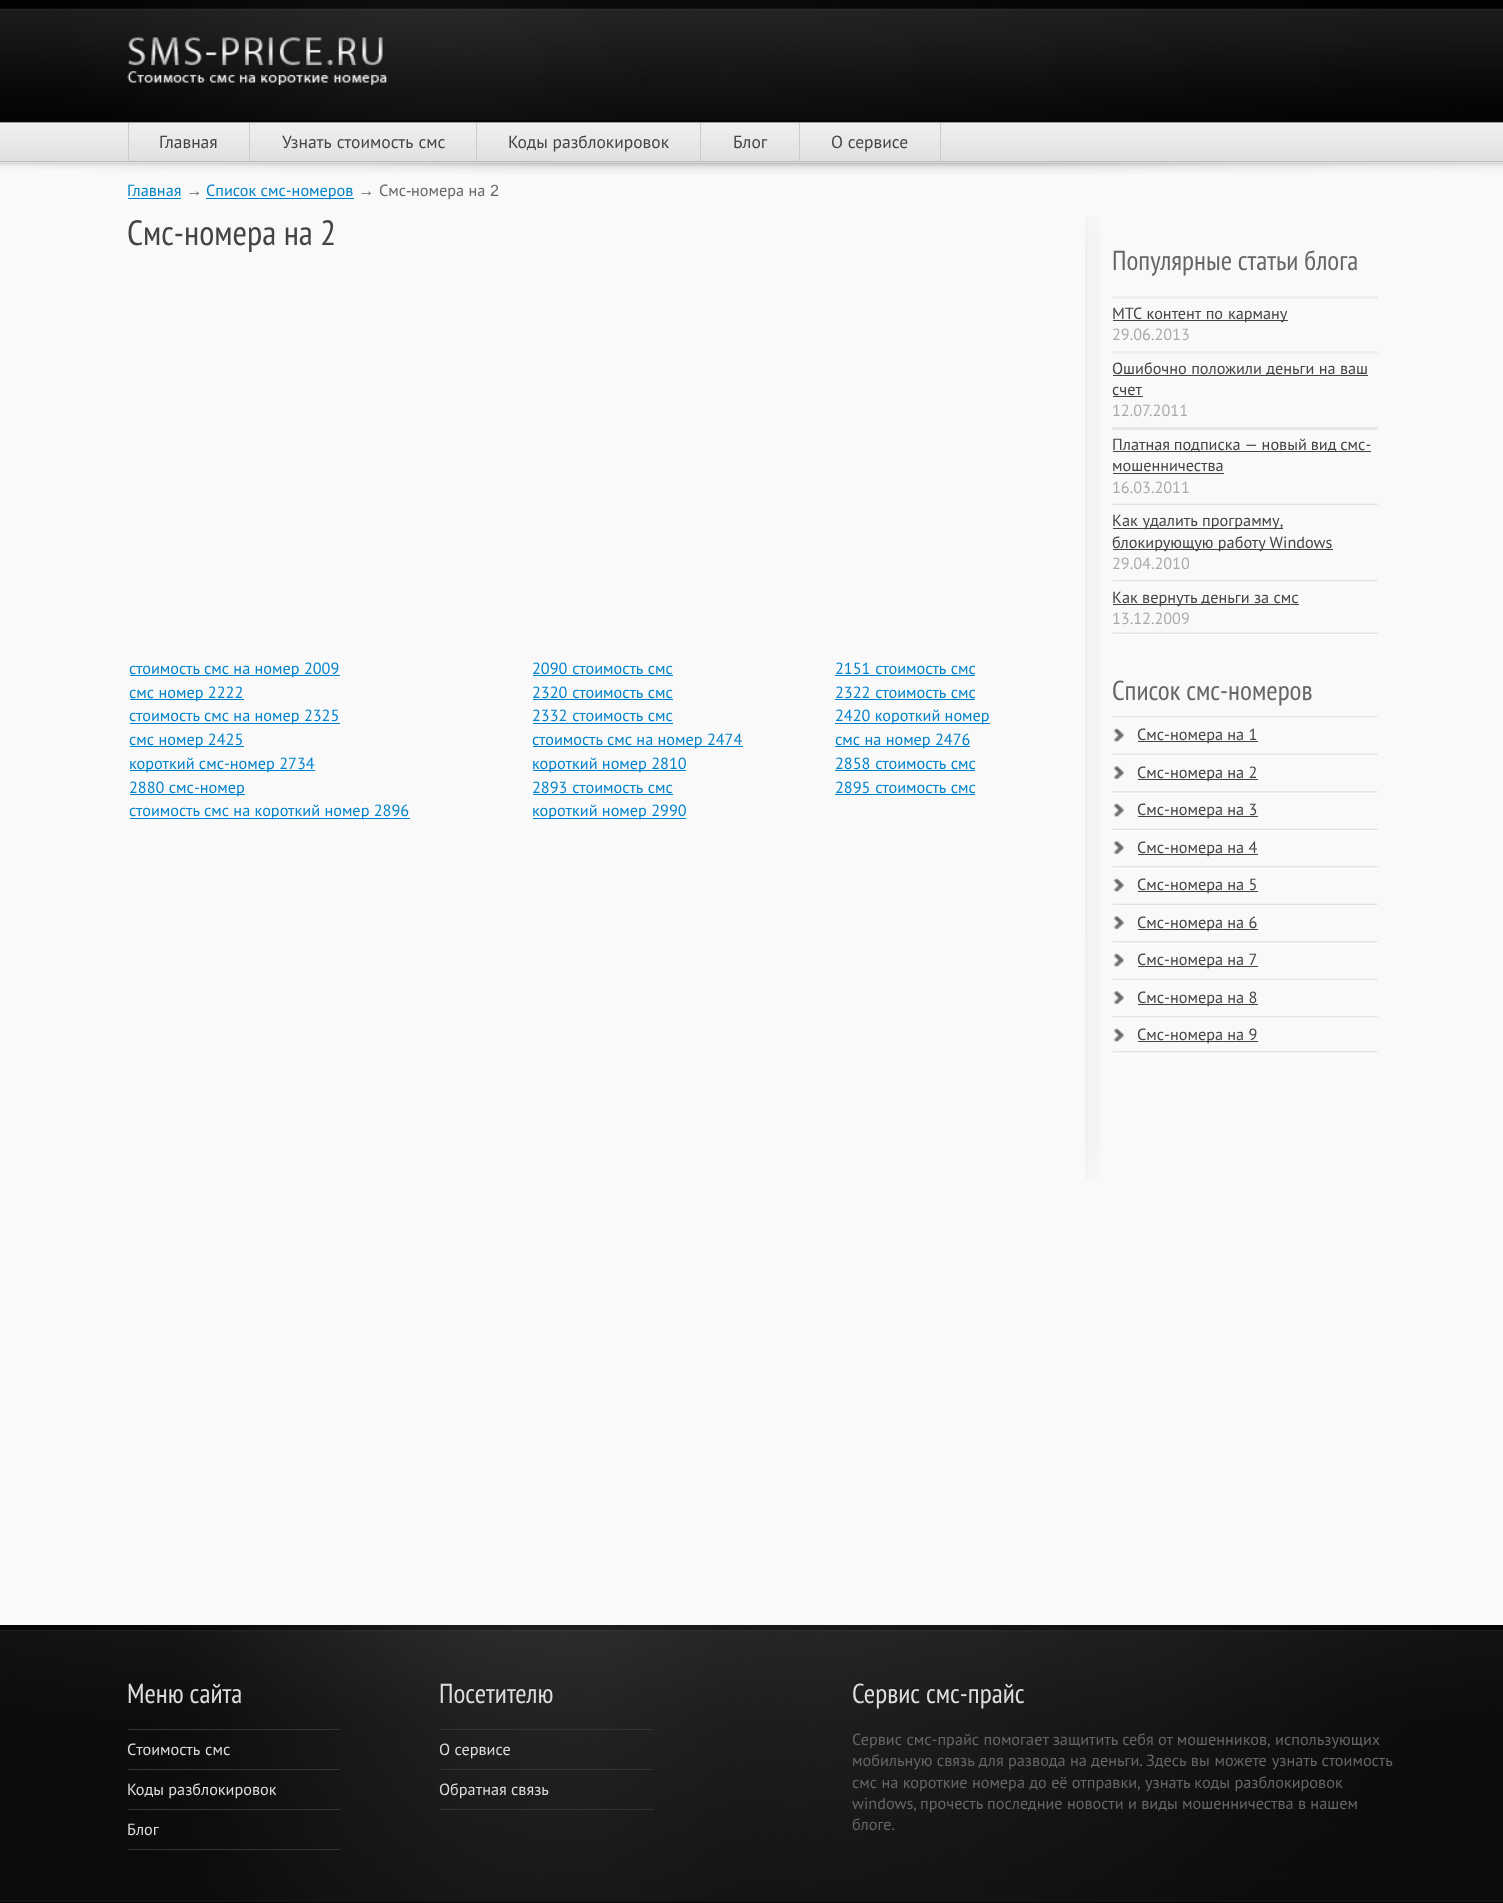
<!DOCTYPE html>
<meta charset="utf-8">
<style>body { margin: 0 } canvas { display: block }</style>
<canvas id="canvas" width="1503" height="1903"></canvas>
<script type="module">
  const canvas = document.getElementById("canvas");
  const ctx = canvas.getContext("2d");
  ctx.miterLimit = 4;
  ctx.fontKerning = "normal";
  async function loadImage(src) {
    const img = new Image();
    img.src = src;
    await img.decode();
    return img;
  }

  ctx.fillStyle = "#f9f9f9";
  ctx.fillRect(0, 0, 1503, 1903);
  ctx.drawImage(await loadImage("img1.png"), 0, 0, 1503, 123);
  ctx.drawImage(await loadImage("img2.png"), 127, 37, 260, 48);
  ctx.drawImage(await loadImage("img3.png"), 0, 122, 1503, 39);
  ctx.fillStyle = "#bbbbbb";
  ctx.fillRect(0, 161, 1503, 1);
  ctx.font = "17.5px PT Sans";
  ctx.fillStyle = "#444444";
  ctx.fillText("Главная", 159, 148);
  ctx.fillStyle = "#cccccc";
  ctx.fillRect(128, 123, 1, 38);
  ctx.wordSpacing = "1px";
  ctx.fillStyle = "#444444";
  ctx.fillText("Узнать стоимость смс", 282, 148);
  ctx.fillStyle = "#cccccc";
  ctx.fillRect(249, 123, 1, 38);
  ctx.wordSpacing = "0px";
  ctx.fillStyle = "#444444";
  ctx.fillText("Коды разблокировок", 508, 148);
  ctx.fillStyle = "#cccccc";
  ctx.fillRect(476, 123, 1, 38);
  ctx.fillStyle = "#444444";
  ctx.fillText("Блог", 733, 148);
  ctx.fillStyle = "#cccccc";
  ctx.fillRect(700, 123, 1, 38);
  ctx.fillStyle = "#444444";
  ctx.fillText("О сервисе", 831, 148);
  ctx.fillStyle = "#cccccc";
  ctx.fillRect(940, 123, 1, 38);
  ctx.fillRect(799, 123, 1, 38);
  ctx.drawImage(await loadImage("img4.png"), 0, 162, 1503, 12);
  ctx.font = "16.25px PT Sans";
  ctx.fillStyle = "#0183cb";
  ctx.fillText("Главная", 127, 196);
  ctx.fillRect(128, 198, 53, 1);
  ctx.font = "16.25px Liberation Sans";
  ctx.fillStyle = "#666666";
  ctx.fillText("→", 186, 196);
  ctx.fillStyle = "#0183cb";
  ctx.fillRect(206, 198, 148, 1);
  ctx.font = "16.25px PT Sans";
  ctx.fillText("Список смс-номеров", 206, 196);
  ctx.font = "16.25px Liberation Sans";
  ctx.fillStyle = "#666666";
  ctx.fillText("→", 358, 196);
  ctx.font = "16.25px PT Sans";
  ctx.fillText("Смс", 379, 196);
  ctx.font = "16.25px Liberation Sans";
  ctx.fillText("-", 406, 196);
  ctx.font = "16.25px PT Sans";
  ctx.fillText("номера на", 411, 196);
  ctx.font = "16.25px Liberation Sans";
  ctx.fillText("2", 490, 196);
  ctx.font = "35px PT Sans Narrow";
  ctx.fillStyle = "#444444";
  ctx.fillText("Смс-номера на 2", 127, 245);
  ctx.fillStyle = "#0183cb";
  ctx.fillRect(130, 675, 210, 1);
  ctx.font = "16.25px PT Sans";
  ctx.fillText("стоимость смс на номер 2009", 129, 674);
  ctx.wordSpacing = "0.5px";
  ctx.fillText("2090 стоимость смс", 532, 674);
  ctx.fillRect(533, 675, 140, 1);
  ctx.fillText("2151 стоимость смс", 835, 674);
  ctx.fillRect(835, 675, 140, 1);
  ctx.fillRect(130, 699, 114, 1);
  ctx.wordSpacing = "0px";
  ctx.fillText("смс номер 2222", 129, 698);
  ctx.wordSpacing = "0.5px";
  ctx.fillText("2320 стоимость смс", 532, 698);
  ctx.fillRect(533, 699, 140, 1);
  ctx.fillText("2322 стоимость смс", 835, 698);
  ctx.fillRect(835, 699, 140, 1);
  ctx.fillRect(130, 723, 210, 1);
  ctx.wordSpacing = "0px";
  ctx.fillText("стоимость смс на номер 2325", 129, 721);
  ctx.wordSpacing = "0.5px";
  ctx.fillText("2332 стоимость смс", 532, 721);
  ctx.fillRect(533, 723, 140, 1);
  ctx.fillRect(835, 723, 155, 1);
  ctx.wordSpacing = "0px";
  ctx.fillText("2420 короткий номер", 835, 721);
  ctx.fillRect(130, 746, 114, 1);
  ctx.fillText("смс номер 2425", 129, 745);
  ctx.fillRect(533, 746, 210, 1);
  ctx.fillText("стоимость смс на номер 2474", 532, 745);
  ctx.fillRect(835, 746, 135, 1);
  ctx.fillText("смс на номер 2476", 835, 745);
  ctx.fillRect(130, 770, 185, 1);
  ctx.fillText("короткий смс-номер 2734", 129, 769);
  ctx.fillRect(533, 770, 153, 1);
  ctx.fillText("короткий номер 2810", 532, 769);
  ctx.wordSpacing = "0.5px";
  ctx.fillText("2858 стоимость смс", 835, 769);
  ctx.fillRect(835, 770, 140, 1);
  ctx.fillRect(130, 794, 115, 1);
  ctx.wordSpacing = "0px";
  ctx.fillText("2880 смс-номер", 129, 793);
  ctx.wordSpacing = "0.5px";
  ctx.fillText("2893 стоимость смс", 532, 793);
  ctx.fillRect(533, 794, 140, 1);
  ctx.fillText("2895 стоимость смс", 835, 793);
  ctx.fillRect(835, 794, 140, 1);
  ctx.fillRect(130, 818, 280, 1);
  ctx.wordSpacing = "0px";
  ctx.fillText("стоимость смс на короткий номер 2896", 129, 816);
  ctx.fillRect(533, 818, 153, 1);
  ctx.fillText("короткий номер 2990", 532, 816);
  ctx.drawImage(await loadImage("img5.png"), 1085, 216, 15, 963);
  ctx.font = "27.5px PT Sans Narrow";
  ctx.fillStyle = "#666666";
  ctx.fillText("Популярные статьи блога", 1112, 270);
  ctx.fillStyle = "#efefef";
  ctx.fillRect(1112, 296, 266, 3);
  ctx.fillStyle = "#444444";
  ctx.fillRect(1113, 320, 175, 1);
  ctx.wordSpacing = "0.5px";
  ctx.font = "16.25px PT Sans";
  ctx.fillText("МТС контент по карману", 1112, 319);
  ctx.wordSpacing = "0px";
  ctx.fillStyle = "#aaaaaa";
  ctx.fillText("29.06.2013", 1112, 340);
  ctx.fillStyle = "#efefef";
  ctx.fillRect(1112, 351, 266, 3);
  ctx.fillStyle = "#444444";
  ctx.fillRect(1113, 375, 255, 1);
  ctx.fillText("Ошибочно положили деньги на ваш", 1112, 374);
  ctx.fillText("счет", 1112, 395);
  ctx.fillRect(1113, 396, 30, 1);
  ctx.fillStyle = "#aaaaaa";
  ctx.fillText("12.07.2011", 1112, 416);
  ctx.fillStyle = "#e7e7e7";
  ctx.fillRect(1112, 427, 266, 3);
  ctx.fillStyle = "#444444";
  ctx.fillRect(1113, 451, 258, 1);
  ctx.wordSpacing = "-0.5px";
  ctx.fillText("Платная подписка — новый вид смс-", 1112, 450);
  ctx.wordSpacing = "0px";
  ctx.fillText("мошенничества", 1112, 471);
  ctx.fillRect(1113, 473, 111, 1);
  ctx.fillStyle = "#aaaaaa";
  ctx.fillText("16.03.2011", 1112, 493);
  ctx.drawImage(await loadImage("img6.png"), 1112, 503, 266, 2);
  ctx.fillStyle = "#444444";
  ctx.fillRect(1113, 528, 170, 1);
  ctx.wordSpacing = "0.5px";
  ctx.fillText("Как удалить программу,", 1112, 526);
  ctx.fillRect(1113, 549, 220, 1);
  ctx.wordSpacing = "0px";
  ctx.fillText("блокирующую работу Windows", 1112, 548);
  ctx.fillStyle = "#aaaaaa";
  ctx.fillText("29.04.2010", 1112, 569);
  ctx.drawImage(await loadImage("img7.png"), 1112, 580, 266, 55);
  ctx.fillStyle = "#444444";
  ctx.fillRect(1113, 604, 186, 1);
  ctx.fillText("Как вернуть деньги за смс", 1112, 603);
  ctx.fillStyle = "#aaaaaa";
  ctx.fillText("13.12.2009", 1112, 624);
  ctx.font = "27.5px PT Sans Narrow";
  ctx.fillStyle = "#666666";
  ctx.fillText("Список смс-номеров", 1112, 700);
  ctx.drawImage(await loadImage("img8.png"), 1112, 716, 266, 26);
  ctx.fillStyle = "#444444";
  ctx.fillRect(1138, 741, 120, 1);
  ctx.font = "16.25px PT Sans";
  ctx.fillText("Смс-номера на 1", 1137, 740);
  ctx.drawImage(await loadImage("img9.png"), 1112, 753, 266, 27);
  ctx.fillRect(1138, 779, 120, 1);
  ctx.fillText("Смс-номера на 2", 1137, 778);
  ctx.drawImage(await loadImage("img8.png"), 1112, 791, 266, 26);
  ctx.fillRect(1138, 816, 120, 1);
  ctx.fillText("Смс-номера на 3", 1137, 815);
  ctx.drawImage(await loadImage("img9.png"), 1112, 828, 266, 27);
  ctx.fillRect(1138, 854, 120, 1);
  ctx.fillText("Смс-номера на 4", 1137, 853);
  ctx.drawImage(await loadImage("img8.png"), 1112, 866, 266, 26);
  ctx.fillRect(1138, 891, 120, 1);
  ctx.fillText("Смс-номера на 5", 1137, 890);
  ctx.drawImage(await loadImage("img9.png"), 1112, 903, 266, 27);
  ctx.fillRect(1138, 929, 120, 1);
  ctx.fillText("Смс-номера на 6", 1137, 928);
  ctx.drawImage(await loadImage("img8.png"), 1112, 941, 266, 26);
  ctx.fillRect(1138, 966, 120, 1);
  ctx.fillText("Смс-номера на 7", 1137, 965);
  ctx.drawImage(await loadImage("img9.png"), 1112, 978, 266, 27);
  ctx.fillRect(1138, 1004, 120, 1);
  ctx.fillText("Смс-номера на 8", 1137, 1003);
  ctx.drawImage(await loadImage("img10.png"), 1112, 1016, 266, 38);
  ctx.fillRect(1138, 1041, 120, 1);
  ctx.fillText("Смс-номера на 9", 1137, 1040);
  ctx.drawImage(await loadImage("img11.png"), 0, 1625, 1503, 275);
  ctx.font = "27.5px PT Sans Narrow";
  ctx.fillStyle = "#dddddd";
  ctx.fillText("Меню сайта", 127, 1703);
  ctx.fillStyle = "#333333";
  ctx.fillRect(128, 1729, 212, 1);
  ctx.wordSpacing = "1px";
  ctx.font = "16.25px PT Sans";
  ctx.fillStyle = "#dddddd";
  ctx.fillText("Cтоимость смс", 127, 1755);
  ctx.fillStyle = "#333333";
  ctx.fillRect(128, 1769, 212, 1);
  ctx.wordSpacing = "0px";
  ctx.fillStyle = "#dddddd";
  ctx.fillText("Коды разблокировок", 127, 1795);
  ctx.fillStyle = "#333333";
  ctx.fillRect(128, 1809, 212, 1);
  ctx.fillRect(128, 1849, 212, 1);
  ctx.fillStyle = "#dddddd";
  ctx.fillText("Блог", 127, 1835);
  ctx.font = "27.5px PT Sans Narrow";
  ctx.fillText("Посетителю", 439, 1703);
  ctx.fillStyle = "#333333";
  ctx.fillRect(440, 1729, 213, 1);
  ctx.font = "16.25px PT Sans";
  ctx.fillStyle = "#dddddd";
  ctx.fillText("О сервисе", 439, 1755);
  ctx.fillStyle = "#333333";
  ctx.fillRect(440, 1769, 213, 1);
  ctx.fillRect(440, 1809, 213, 1);
  ctx.fillStyle = "#dddddd";
  ctx.fillText("Обратная связь", 439, 1795);
  ctx.font = "27.5px PT Sans Narrow";
  ctx.fillText("Сервис смс-прайс", 852, 1703);
  ctx.font = "16.25px PT Sans";
  ctx.fillStyle = "#666666";
  ctx.fillText("Сервис смс-прайс помогает защитить себя от мошенников, использующих", 852, 1745);
  ctx.fillText("мобильную связь для развода на деньги.", 852, 1766);
  ctx.wordSpacing = "0.5px";
  ctx.fillText("Здесь вы можете узнать стоимость", 1146, 1766);
  ctx.wordSpacing = "0px";
  ctx.fillText("смс на короткие номера до её отправки, узнать коды разблокировок", 852, 1788);
  ctx.fillText("windows,", 852, 1809);
  ctx.fillText("прочесть последние новости и виды мошенничества в нашем", 920, 1809);
  ctx.fillText("блоге.", 852, 1830);
  ctx.drawImage(await loadImage("img12.png"), 0, 1901, 1503, 2);
  ctx.fillStyle = "#141414";
  ctx.fillRect(0, 1900, 1503, 1);
</script>
